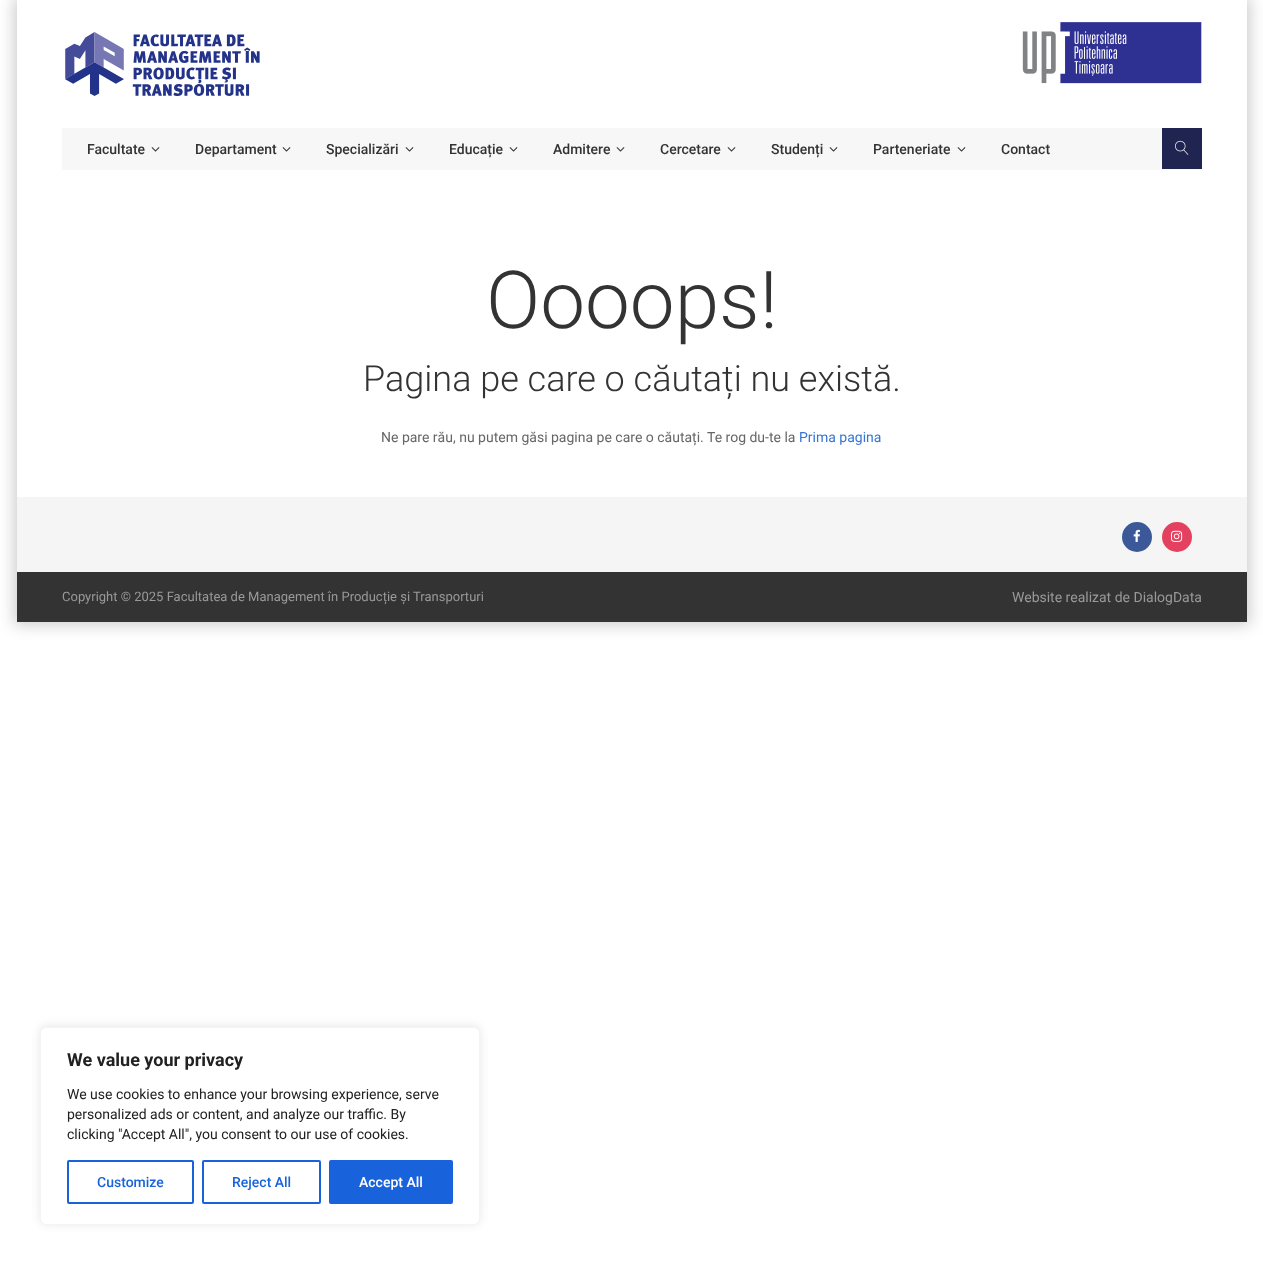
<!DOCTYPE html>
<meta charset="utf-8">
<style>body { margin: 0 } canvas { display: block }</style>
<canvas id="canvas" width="1263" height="1265"></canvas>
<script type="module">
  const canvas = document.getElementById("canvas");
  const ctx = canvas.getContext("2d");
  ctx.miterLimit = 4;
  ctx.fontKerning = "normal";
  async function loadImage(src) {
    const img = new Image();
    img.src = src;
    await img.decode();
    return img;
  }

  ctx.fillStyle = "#ffffff";
  ctx.fillRect(0, 0, 1263, 1265);
  ctx.save();
  ctx.beginPath();
  ctx.moveTo(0, 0);
  ctx.lineTo(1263, 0);
  ctx.lineTo(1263, 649);
  ctx.lineTo(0, 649);
  ctx.closePath();
  ctx.moveTo(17, 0);
  ctx.lineTo(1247, 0);
  ctx.lineTo(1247, 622);
  ctx.lineTo(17, 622);
  ctx.closePath();
  ctx.clip("evenodd");
  ctx.fillStyle = "rgba(0, 0, 0, 0.2)";
  ctx.filter = "blur(7.5px)";
  ctx.beginPath();
  ctx.rect(14, -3, 1236, 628);
  ctx.fill();
  ctx.filter = "none";
  ctx.restore();
  ctx.drawImage(await loadImage("img1.png"), 65, 32, 195, 64);
  ctx.drawImage(await loadImage("img2.png"), 1022, 22, 180, 62);
  ctx.fillStyle = "#f7f7f7";
  ctx.fillRect(62, 128, 1140, 42);
  ctx.font = "500 14px Roboto";
  ctx.fillStyle = "#333333";
  ctx.fillText("Facultate", 87, 154);
  ctx.drawImage(await loadImage("img3.png"), 151, 147, 9, 5);
  ctx.fillText("Departament", 195, 154);
  ctx.drawImage(await loadImage("img3.png"), 282, 147, 9, 5);
  ctx.fillText("Specializări", 326, 154);
  ctx.drawImage(await loadImage("img3.png"), 405, 147, 9, 5);
  ctx.fillText("Educație", 449, 154);
  ctx.drawImage(await loadImage("img3.png"), 509, 147, 9, 5);
  ctx.fillText("Admitere", 553, 154);
  ctx.drawImage(await loadImage("img3.png"), 616, 147, 9, 5);
  ctx.fillText("Cercetare", 660, 154);
  ctx.drawImage(await loadImage("img3.png"), 727, 147, 9, 5);
  ctx.fillText("Studenți", 771, 154);
  ctx.drawImage(await loadImage("img3.png"), 829, 147, 9, 5);
  ctx.fillText("Parteneriate", 873, 154);
  ctx.drawImage(await loadImage("img3.png"), 957, 147, 9, 5);
  ctx.fillText("Contact", 1001, 154);
  ctx.fillStyle = "#202451";
  ctx.fillRect(1162, 128, 40, 41);
  ctx.drawImage(await loadImage("img4.png"), 1175, 140, 14, 15);
  ctx.font = "300 80px Roboto";
  ctx.fillStyle = "#333333";
  ctx.fillText("Oooops!", 486, 328);
  ctx.font = "300 36px Roboto";
  ctx.fillText("Pagina pe care o căutați nu există.", 363, 391);
  ctx.font = "14px Roboto";
  ctx.fillStyle = "#666666";
  ctx.fillText("Ne pare rău, nu putem găsi pagina pe care o căutați. Te rog du-te la", 381, 442);
  ctx.fillStyle = "#3575d3";
  ctx.fillText("Prima pagina", 799, 442);
  ctx.fillStyle = "#f5f5f5";
  ctx.fillRect(17, 497, 1230, 75);
  ctx.fillStyle = "#3b5999";
  ctx.beginPath();
  ctx.arc(1137, 537, 15, 0, Math.PI * 2);
  ctx.fill();
  ctx.drawImage(await loadImage("img5.png"), 1133, 529, 7, 13);
  ctx.fillStyle = "#e4405f";
  ctx.beginPath();
  ctx.arc(1177, 537, 15, 0, Math.PI * 2);
  ctx.fill();
  ctx.drawImage(await loadImage("img6.png"), 1171, 530, 12, 12);
  ctx.fillStyle = "#333333";
  ctx.fillRect(17, 572, 1230, 50);
  ctx.font = "13px Roboto";
  ctx.fillStyle = "#999999";
  ctx.fillText("Copyright © 2025 Facultatea de Management în Producție și Transporturi", 62, 601);
  ctx.font = "14px Roboto";
  ctx.fillText("Website realizat de DialogData", 1012, 602);
  ctx.fillStyle = "rgba(172, 171, 171, 0.3)";
  ctx.filter = "blur(5px)";
  ctx.beginPath();
  ctx.roundRect(40, 1026, 440, 198, 6);
  ctx.fill();
  ctx.filter = "none";
  ctx.fillStyle = "#ffffff";
  ctx.beginPath();
  ctx.roundRect(40.5, 1027.5, 439, 197, 5.5);
  ctx.fill();
  ctx.strokeStyle = "#f4f4f4";
  ctx.stroke();
  ctx.font = "bold 18px Roboto";
  ctx.fillStyle = "#212121";
  ctx.fillText("We value your privacy", 67, 1066);
  ctx.font = "14px Roboto";
  ctx.fillText("We use cookies to enhance your browsing experience, serve", 67, 1099);
  ctx.fillText("personalized ads or content, and analyze our traffic. By", 67, 1119);
  ctx.fillText("clicking \"Accept All\", you consent to our use of cookies.", 67, 1139);
  ctx.beginPath();
  ctx.roundRect(68, 1161, 125, 42, 1);
  ctx.strokeStyle = "#1863dc";
  ctx.lineWidth = 2;
  ctx.stroke();
  ctx.font = "500 14px Roboto";
  ctx.fillStyle = "#1863dc";
  ctx.fillText("Customize", 97, 1187);
  ctx.beginPath();
  ctx.roundRect(203, 1161, 117, 42, 1);
  ctx.stroke();
  ctx.fillText("Reject All", 232, 1187);
  ctx.beginPath();
  ctx.roundRect(330, 1161, 122, 42, 1);
  ctx.fill();
  ctx.stroke();
  ctx.fillStyle = "#ffffff";
  ctx.fillText("Accept All", 359, 1187);
</script>
